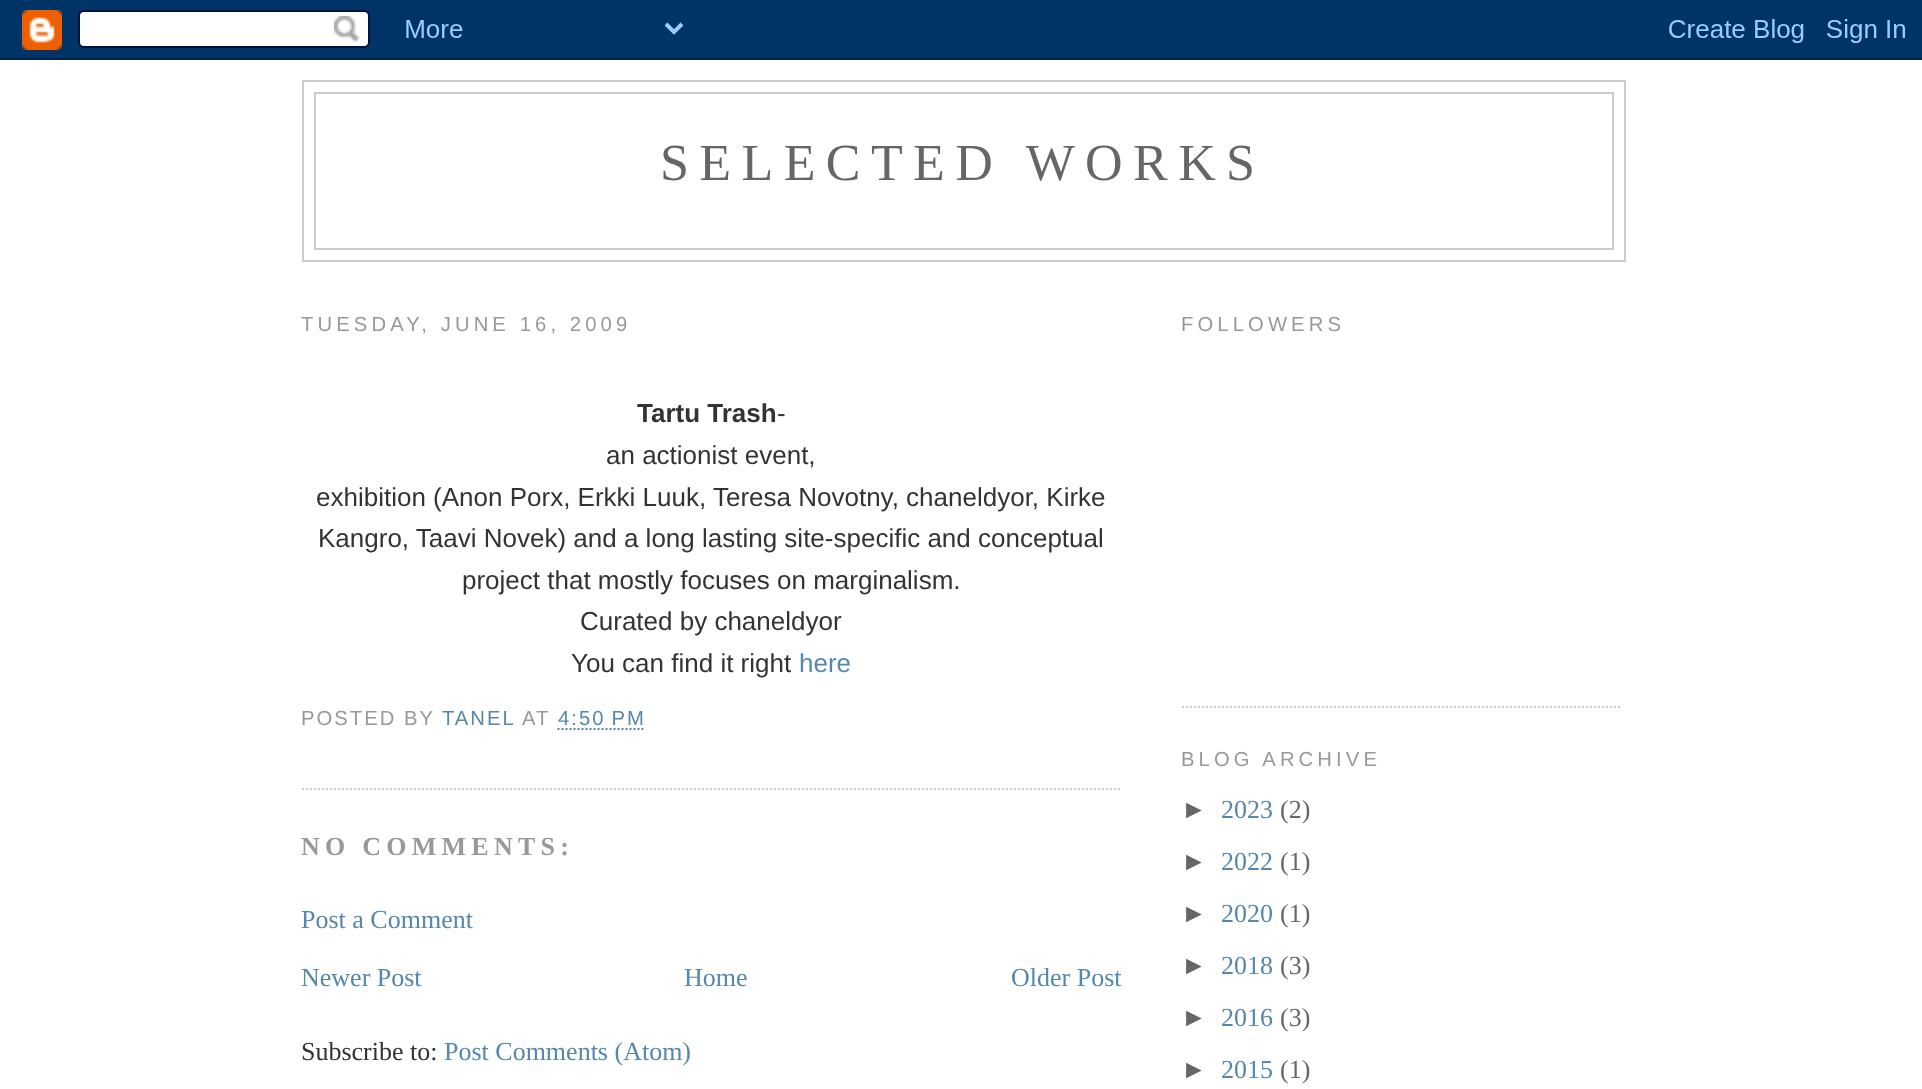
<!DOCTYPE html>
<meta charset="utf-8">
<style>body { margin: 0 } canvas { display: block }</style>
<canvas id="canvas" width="1922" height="1089"></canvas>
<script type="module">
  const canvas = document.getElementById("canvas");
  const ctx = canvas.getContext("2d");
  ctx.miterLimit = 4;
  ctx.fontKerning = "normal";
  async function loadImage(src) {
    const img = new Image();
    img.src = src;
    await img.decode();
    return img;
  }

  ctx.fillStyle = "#ffffff";
  ctx.fillRect(0, 0, 1922, 1089);
  ctx.drawImage(await loadImage("img1.png"), 0, 0, 1922, 60);
  ctx.strokeStyle = "#cccccc";
  ctx.lineWidth = 2;
  ctx.strokeRect(303, 81, 1322, 180);
  ctx.strokeRect(315, 93, 1298, 156);
  ctx.letterSpacing = "10.4px";
  ctx.font = "52px Liberation Serif";
  ctx.fillStyle = "#666666";
  ctx.fillText("SELECTED WORKS", 660, 180);
  ctx.letterSpacing = "4.1px";
  ctx.font = "20.25px Liberation Sans";
  ctx.fillStyle = "#999999";
  ctx.fillText("TUESDAY, JUNE 16, 2009", 301, 331);
  ctx.beginPath();
  ctx.moveTo(302, 789);
  ctx.lineTo(1122, 789);
  ctx.setLineDash([2, 2]);
  ctx.stroke();
  ctx.letterSpacing = "0px";
  ctx.font = "bold 26px Liberation Sans";
  ctx.fillStyle = "#333333";
  ctx.fillText("Tartu Trash", 637, 422);
  ctx.font = "26px Liberation Sans";
  ctx.fillText("-", 777, 422);
  ctx.fillText("an actionist event,", 606, 464);
  ctx.fillText("exhibition (Anon Porx, Erkki Luuk, Teresa Novotny, chaneldyor, Kirke", 316, 506);
  ctx.fillText("Kangro, Taavi Novek) and a long lasting site-specific and conceptual", 318, 547);
  ctx.fillText("project that mostly focuses on marginalism.", 462, 589);
  ctx.fillText("Curated by chaneldyor", 580, 630);
  ctx.fillText("You can find it right", 571, 672);
  ctx.fillStyle = "#5588aa";
  ctx.fillText("here", 799, 672);
  ctx.letterSpacing = "2px";
  ctx.font = "20.25px Liberation Sans";
  ctx.fillStyle = "#999999";
  ctx.fillText("POSTED BY", 301, 725);
  ctx.fillStyle = "#5588aa";
  ctx.fillText("TANEL", 442, 725);
  ctx.fillStyle = "#999999";
  ctx.fillText("AT", 522, 725);
  ctx.fillStyle = "#5588aa";
  ctx.fillText("4:50 PM", 558, 725);
  ctx.beginPath();
  ctx.moveTo(557.5, 729);
  ctx.lineTo(645.5, 729);
  ctx.strokeStyle = "#5588aa";
  ctx.stroke();
  ctx.letterSpacing = "5.25px";
  ctx.font = "bold 26px Liberation Serif";
  ctx.fillStyle = "#999999";
  ctx.fillText("NO COMMENTS:", 301, 855);
  ctx.letterSpacing = "0px";
  ctx.font = "26px Liberation Serif";
  ctx.fillStyle = "#5588aa";
  ctx.fillText("Post a Comment", 301, 928);
  ctx.fillText("Newer Post", 301, 986);
  ctx.fillText("Home", 684, 986);
  ctx.fillText("Older Post", 1011, 986);
  ctx.fillStyle = "#333333";
  ctx.fillText("Subscribe to:", 301, 1060);
  ctx.fillStyle = "#5588aa";
  ctx.fillText("Post Comments (Atom)", 444, 1060);
  ctx.beginPath();
  ctx.moveTo(1182, 707);
  ctx.lineTo(1622, 707);
  ctx.strokeStyle = "#cccccc";
  ctx.stroke();
  ctx.letterSpacing = "4.1px";
  ctx.font = "20.25px Liberation Sans";
  ctx.fillStyle = "#999999";
  ctx.fillText("FOLLOWERS", 1181, 331);
  ctx.fillText("BLOG ARCHIVE", 1181, 766);
  ctx.letterSpacing = "0px";
  ctx.font = "26px Liberation Sans";
  ctx.fillStyle = "#666666";
  ctx.fillText("►", 1181, 818);
  ctx.font = "26px Liberation Serif";
  ctx.fillStyle = "#5588aa";
  ctx.fillText("2023", 1221, 818);
  ctx.fillStyle = "#666666";
  ctx.fillText("(2)", 1280, 818);
  ctx.font = "26px Liberation Sans";
  ctx.fillText("►", 1181, 870);
  ctx.font = "26px Liberation Serif";
  ctx.fillStyle = "#5588aa";
  ctx.fillText("2022", 1221, 870);
  ctx.fillStyle = "#666666";
  ctx.fillText("(1)", 1280, 870);
  ctx.font = "26px Liberation Sans";
  ctx.fillText("►", 1181, 922);
  ctx.font = "26px Liberation Serif";
  ctx.fillStyle = "#5588aa";
  ctx.fillText("2020", 1221, 922);
  ctx.fillStyle = "#666666";
  ctx.fillText("(1)", 1280, 922);
  ctx.font = "26px Liberation Sans";
  ctx.fillText("►", 1181, 974);
  ctx.font = "26px Liberation Serif";
  ctx.fillStyle = "#5588aa";
  ctx.fillText("2018", 1221, 974);
  ctx.fillStyle = "#666666";
  ctx.fillText("(3)", 1280, 974);
  ctx.font = "26px Liberation Sans";
  ctx.fillText("►", 1181, 1026);
  ctx.font = "26px Liberation Serif";
  ctx.fillStyle = "#5588aa";
  ctx.fillText("2016", 1221, 1026);
  ctx.fillStyle = "#666666";
  ctx.fillText("(3)", 1280, 1026);
  ctx.font = "26px Liberation Sans";
  ctx.fillText("►", 1181, 1078);
  ctx.font = "26px Liberation Serif";
  ctx.fillStyle = "#5588aa";
  ctx.fillText("2015", 1221, 1078);
  ctx.fillStyle = "#666666";
  ctx.fillText("(1)", 1280, 1078);
</script>
